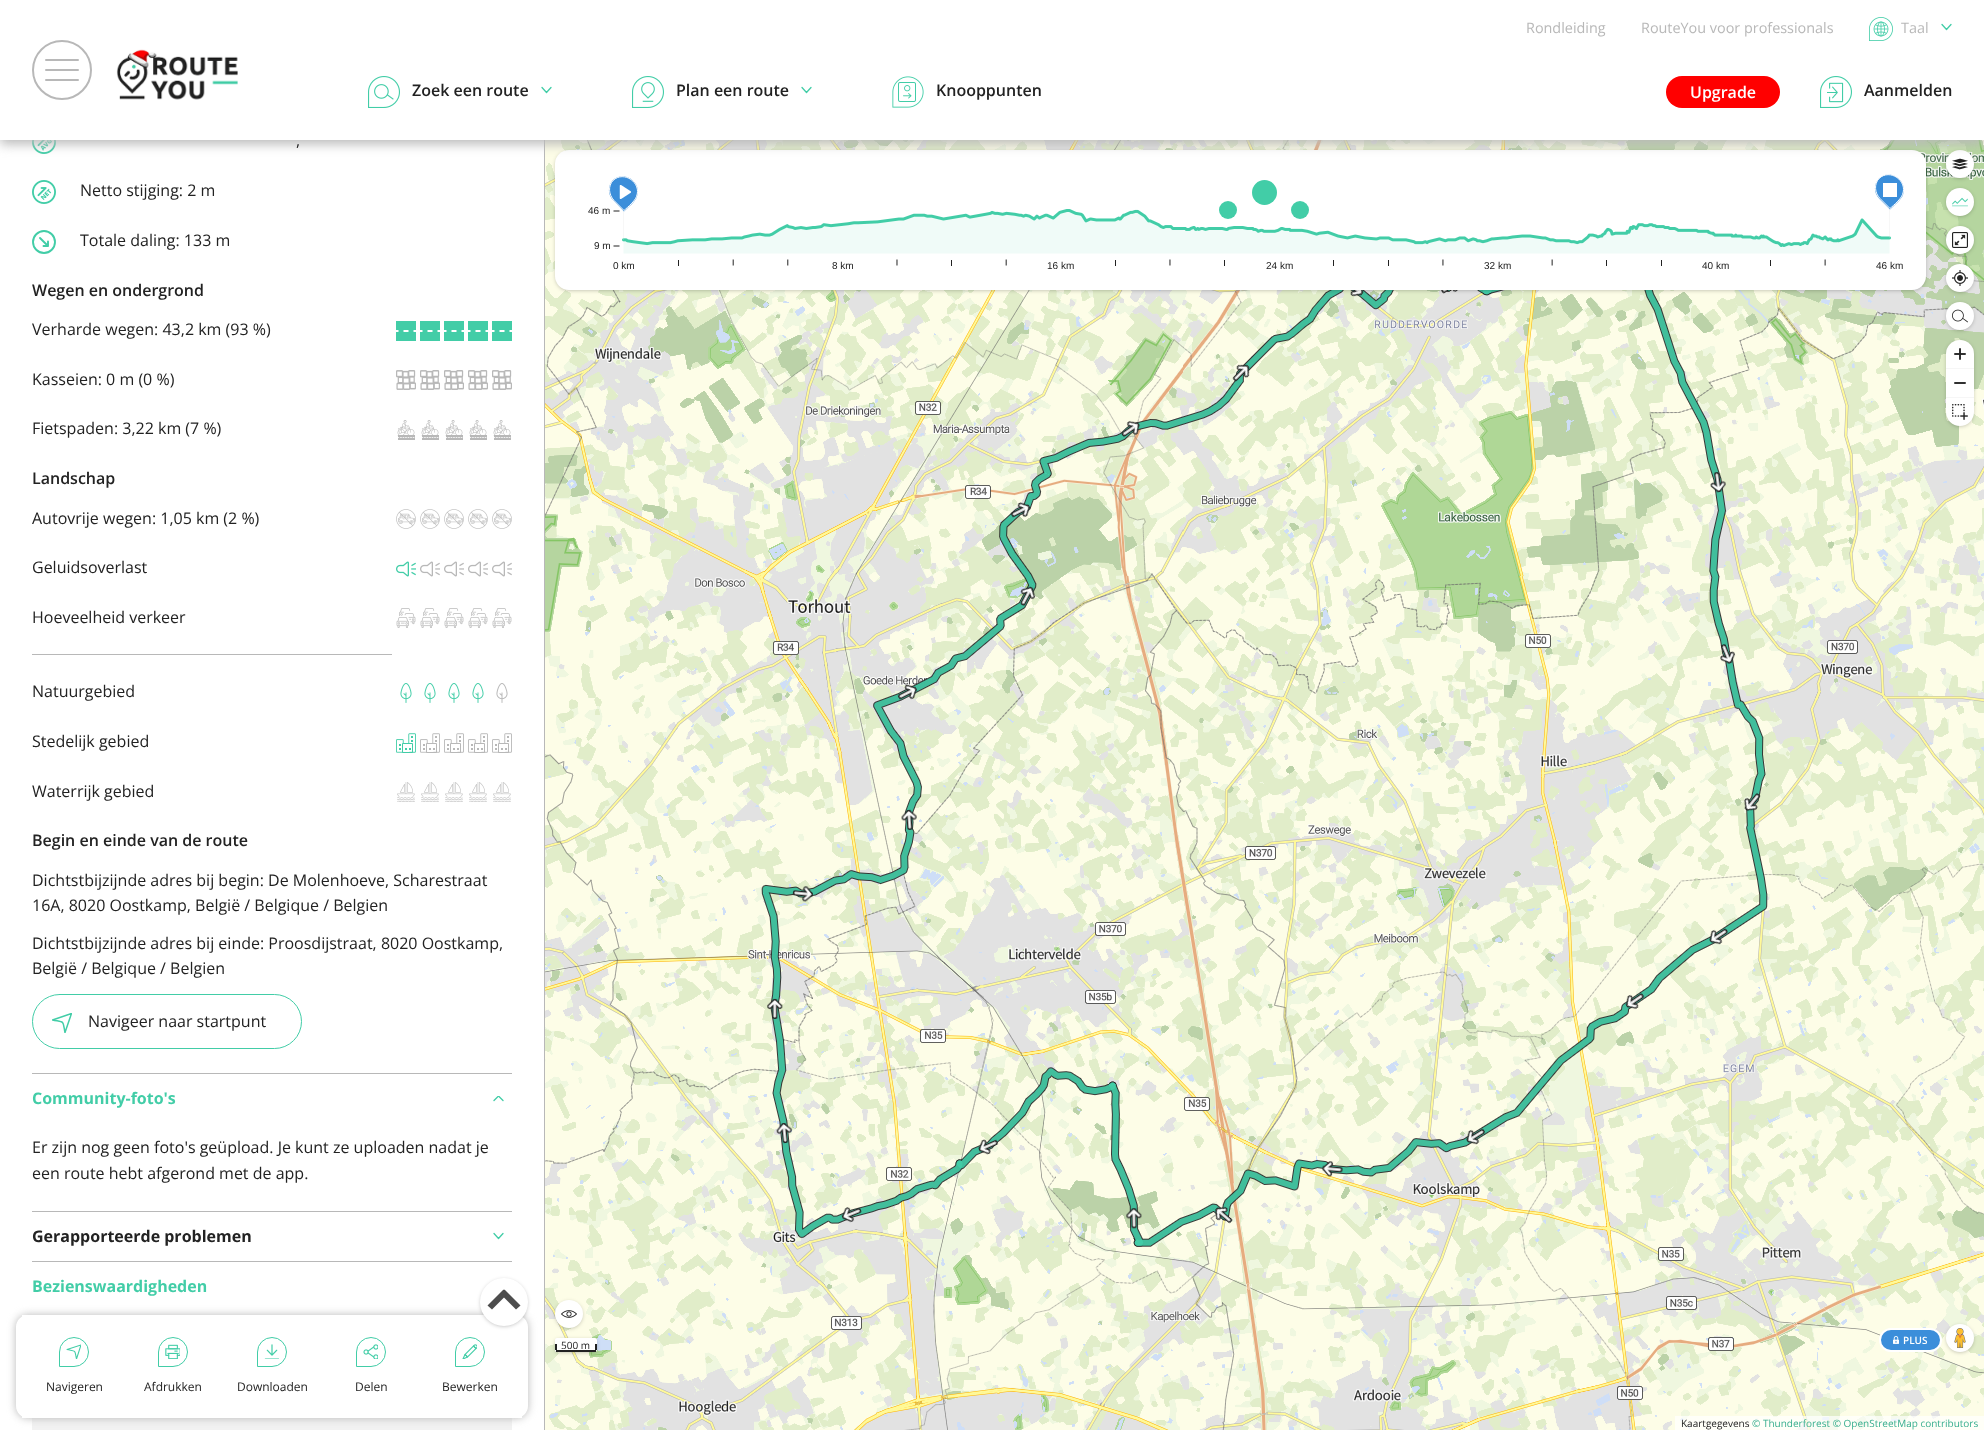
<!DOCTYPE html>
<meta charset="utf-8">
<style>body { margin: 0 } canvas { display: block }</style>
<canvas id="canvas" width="1984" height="1430"></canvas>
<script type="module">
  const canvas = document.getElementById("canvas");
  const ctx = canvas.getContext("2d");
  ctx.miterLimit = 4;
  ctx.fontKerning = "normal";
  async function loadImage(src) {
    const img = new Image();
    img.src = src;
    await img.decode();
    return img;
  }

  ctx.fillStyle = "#ffffff";
  ctx.fillRect(0, 0, 1984, 1430);
  ctx.drawImage(await loadImage("img7.png"), 32, 140, 24, 14);
  ctx.fillStyle = "#b8b8b8";
  ctx.fillRect(544, 140, 1, 1290);
  ctx.drawImage(await loadImage("img21.png"), 545, 140, 1439, 1290);
  ctx.fillStyle = "rgba(0, 0, 0, 0.3)";
  ctx.filter = "blur(2px)";
  ctx.beginPath();
  ctx.roundRect(1947, 152, 26, 26, 13);
  ctx.fill();
  ctx.filter = "none";
  ctx.fillStyle = "#ffffff";
  ctx.beginPath();
  ctx.arc(1960, 164, 14, 0, Math.PI * 2);
  ctx.fill();
  ctx.drawImage(await loadImage("img22.png"), 1952, 158, 16, 12);
  ctx.fillStyle = "rgba(0, 0, 0, 0.3)";
  ctx.filter = "blur(2px)";
  ctx.beginPath();
  ctx.roundRect(556, 152, 1369, 138, 13);
  ctx.fill();
  ctx.filter = "none";
  ctx.fillStyle = "#ffffff";
  ctx.beginPath();
  ctx.roundRect(555, 150, 1371, 140, 14);
  ctx.fill();
  ctx.fillStyle = "#b8b8b8";
  ctx.filter = "blur(6px)";
  ctx.beginPath();
  ctx.rect(0, 4, 1984, 140);
  ctx.fill();
  ctx.filter = "none";
  ctx.fillStyle = "#ffffff";
  ctx.fillRect(0, 0, 1984, 140);
  ctx.font = "14.4px Open Sans";
  ctx.fillStyle = "#b8b8b8";
  ctx.fillText("Rondleiding", 1526, 33);
  ctx.fillText("RouteYou voor professionals", 1641, 33);
  ctx.drawImage(await loadImage("img1.png"), 1869, 17, 24, 24);
  ctx.fillText("Taal", 1901, 33);
  ctx.beginPath();
  ctx.moveTo(1951, 24.5);
  ctx.lineTo(1946.5, 29.5);
  ctx.lineTo(1942, 24.5);
  ctx.strokeStyle = "#42cda7";
  ctx.lineWidth = 1.3;
  ctx.lineCap = "round";
  ctx.lineJoin = "round";
  ctx.stroke();
  ctx.beginPath();
  ctx.arc(62, 70, 29, 0, Math.PI * 2);
  ctx.strokeStyle = "#b8b8b8";
  ctx.lineWidth = 2;
  ctx.stroke();
  ctx.beginPath();
  ctx.roundRect(45, 59, 34, 2, 1);
  ctx.fill();
  ctx.beginPath();
  ctx.roundRect(45, 69, 34, 2, 1);
  ctx.fill();
  ctx.beginPath();
  ctx.roundRect(45, 79, 34, 2, 1);
  ctx.fill();
  ctx.drawImage(await loadImage("img2.png"), 116, 49, 122, 51);
  ctx.drawImage(await loadImage("img3.png"), 368, 76, 32, 32);
  ctx.font = "600 16px Open Sans";
  ctx.fillStyle = "#222222";
  ctx.fillText("Zoek een route", 412, 96);
  ctx.beginPath();
  ctx.moveTo(551, 87.5);
  ctx.lineTo(546.5, 92.5);
  ctx.lineTo(542, 87.5);
  ctx.strokeStyle = "#42cda7";
  ctx.lineWidth = 1.3;
  ctx.stroke();
  ctx.drawImage(await loadImage("img4.png"), 632, 76, 32, 32);
  ctx.fillText("Plan een route", 676, 96);
  ctx.beginPath();
  ctx.moveTo(811, 87.5);
  ctx.lineTo(806.5, 92.5);
  ctx.lineTo(802, 87.5);
  ctx.stroke();
  ctx.drawImage(await loadImage("img5.png"), 892, 76, 32, 32);
  ctx.fillText("Knooppunten", 936, 96);
  ctx.fillStyle = "#ff0000";
  ctx.beginPath();
  ctx.roundRect(1666, 76, 114, 32, 16);
  ctx.fill();
  ctx.fillStyle = "#ffffff";
  ctx.fillText("Upgrade", 1690, 98);
  ctx.drawImage(await loadImage("img6.png"), 1820, 76, 32, 32);
  ctx.fillStyle = "#222222";
  ctx.fillText("Aanmelden", 1864, 96);
  ctx.font = "16px Open Sans";
  ctx.fillText(",", 296, 146);
  ctx.drawImage(await loadImage("img8.png"), 32, 180, 24, 24);
  ctx.fillText("Netto stijging: 2 m", 80, 196);
  ctx.beginPath();
  ctx.arc(44, 242, 11, 0, Math.PI * 2);
  ctx.lineWidth = 1.9;
  ctx.stroke();
  ctx.beginPath();
  ctx.moveTo(40, 238);
  ctx.lineTo(48, 246);
  ctx.lineTo(48, 241.5);
  ctx.moveTo(40, 238);
  ctx.lineTo(48, 246);
  ctx.lineTo(43.5, 246);
  ctx.stroke();
  ctx.fillText("Totale daling: 133 m", 80, 246);
  ctx.font = "600 16px Open Sans";
  ctx.fillText("Wegen en ondergrond", 32, 296);
  ctx.font = "16px Open Sans";
  ctx.fillText("Verharde wegen: 43,2 km (93 %)", 32, 335);
  ctx.drawImage(await loadImage("img9.png"), 396, 321, 20, 20);
  ctx.drawImage(await loadImage("img9.png"), 420, 321, 20, 20);
  ctx.drawImage(await loadImage("img9.png"), 444, 321, 20, 20);
  ctx.drawImage(await loadImage("img9.png"), 468, 321, 20, 20);
  ctx.drawImage(await loadImage("img9.png"), 492, 321, 20, 20);
  ctx.fillText("Kasseien: 0 m (0 %)", 32, 385);
  ctx.drawImage(await loadImage("img10.png"), 396, 370, 20, 20);
  ctx.drawImage(await loadImage("img10.png"), 420, 370, 20, 20);
  ctx.drawImage(await loadImage("img10.png"), 444, 370, 20, 20);
  ctx.drawImage(await loadImage("img10.png"), 468, 370, 20, 20);
  ctx.drawImage(await loadImage("img10.png"), 492, 370, 20, 20);
  ctx.fillText("Fietspaden: 3,22 km (7 %)", 32, 434);
  ctx.drawImage(await loadImage("img11.png"), 397, 420, 18, 20);
  ctx.drawImage(await loadImage("img11.png"), 421, 420, 18, 20);
  ctx.drawImage(await loadImage("img11.png"), 445, 420, 18, 20);
  ctx.drawImage(await loadImage("img11.png"), 469, 420, 18, 20);
  ctx.drawImage(await loadImage("img11.png"), 493, 420, 18, 20);
  ctx.font = "600 16px Open Sans";
  ctx.fillText("Landschap", 32, 484);
  ctx.font = "16px Open Sans";
  ctx.fillText("Autovrije wegen: 1,05 km (2 %)", 32, 524);
  ctx.drawImage(await loadImage("img12.png"), 396, 509, 20, 20);
  ctx.drawImage(await loadImage("img12.png"), 420, 509, 20, 20);
  ctx.drawImage(await loadImage("img12.png"), 444, 509, 20, 20);
  ctx.drawImage(await loadImage("img12.png"), 468, 509, 20, 20);
  ctx.drawImage(await loadImage("img12.png"), 492, 509, 20, 20);
  ctx.fillText("Geluidsoverlast", 32, 573);
  ctx.drawImage(await loadImage("img13.png"), 396, 561, 20, 16);
  ctx.drawImage(await loadImage("img14.png"), 420, 561, 20, 16);
  ctx.drawImage(await loadImage("img14.png"), 444, 561, 20, 16);
  ctx.drawImage(await loadImage("img14.png"), 468, 561, 20, 16);
  ctx.drawImage(await loadImage("img14.png"), 492, 561, 20, 16);
  ctx.fillText("Hoeveelheid verkeer", 32, 623);
  ctx.drawImage(await loadImage("img15.png"), 396, 608, 20, 20);
  ctx.drawImage(await loadImage("img15.png"), 420, 608, 20, 20);
  ctx.drawImage(await loadImage("img15.png"), 444, 608, 20, 20);
  ctx.drawImage(await loadImage("img15.png"), 468, 608, 20, 20);
  ctx.drawImage(await loadImage("img15.png"), 492, 608, 20, 20);
  ctx.fillStyle = "#b8b8b8";
  ctx.fillRect(32, 654, 360, 1);
  ctx.fillStyle = "#222222";
  ctx.fillText("Natuurgebied", 32, 697);
  ctx.drawImage(await loadImage("img16.png"), 400, 683, 12, 20);
  ctx.drawImage(await loadImage("img16.png"), 424, 683, 12, 20);
  ctx.drawImage(await loadImage("img16.png"), 448, 683, 12, 20);
  ctx.drawImage(await loadImage("img16.png"), 472, 683, 12, 20);
  ctx.drawImage(await loadImage("img17.png"), 496, 683, 12, 20);
  ctx.fillText("Stedelijk gebied", 32, 747);
  ctx.drawImage(await loadImage("img18.png"), 396, 733, 20, 20);
  ctx.drawImage(await loadImage("img19.png"), 420, 733, 20, 20);
  ctx.drawImage(await loadImage("img19.png"), 444, 733, 20, 20);
  ctx.drawImage(await loadImage("img19.png"), 468, 733, 20, 20);
  ctx.drawImage(await loadImage("img19.png"), 492, 733, 20, 20);
  ctx.fillText("Waterrijk gebied", 32, 797);
  ctx.drawImage(await loadImage("img20.png"), 397, 782, 18, 20);
  ctx.drawImage(await loadImage("img20.png"), 421, 782, 18, 20);
  ctx.drawImage(await loadImage("img20.png"), 445, 782, 18, 20);
  ctx.drawImage(await loadImage("img20.png"), 469, 782, 18, 20);
  ctx.drawImage(await loadImage("img20.png"), 493, 782, 18, 20);
  ctx.font = "600 16px Open Sans";
  ctx.fillText("Begin en einde van de route", 32, 846);
  ctx.font = "16px Open Sans";
  ctx.fillText("Dichtstbijzijnde adres bij begin: De Molenhoeve, Scharestraat", 32, 886);
  ctx.fillText("16A, 8020 Oostkamp, België / Belgique / Belgien", 32, 911);
  ctx.fillText("Dichtstbijzijnde adres bij einde: Proosdijstraat, 8020 Oostkamp,", 32, 949);
  ctx.fillText("België / Belgique / Belgien", 32, 974);
  ctx.beginPath();
  ctx.roundRect(32.5, 994.5, 269, 54, 27);
  ctx.lineWidth = 1;
  ctx.lineJoin = "miter";
  ctx.stroke();
  ctx.save();
  ctx.beginPath();
  ctx.rect(52, 1013, 20, 20);
  ctx.clip();
  ctx.beginPath();
  ctx.moveTo(65, 1032.5);
  ctx.bezierCurveTo(62.5, 1020, 65, 1022.5, 52.5, 1020);
  ctx.lineTo(71.5, 1013.5);
  ctx.closePath();
  ctx.lineWidth = 1.5;
  ctx.lineJoin = "round";
  ctx.stroke();
  ctx.restore();
  ctx.fillText("Navigeer naar startpunt", 88, 1027);
  ctx.fillStyle = "#b8b8b8";
  ctx.fillRect(32, 1073, 480, 1);
  ctx.font = "bold 16px Open Sans";
  ctx.fillStyle = "#42cda7";
  ctx.fillText("Community-foto's", 32, 1104);
  ctx.save();
  ctx.beginPath();
  ctx.rect(493, 1096, 11, 6);
  ctx.clip();
  ctx.beginPath();
  ctx.moveTo(503, 1100.5);
  ctx.lineTo(498.5, 1096);
  ctx.lineTo(494, 1100.5);
  ctx.lineWidth = 1.3;
  ctx.lineJoin = "round";
  ctx.stroke();
  ctx.restore();
  ctx.font = "16px Open Sans";
  ctx.fillStyle = "#222222";
  ctx.fillText("Er zijn nog geen foto's geüpload. Je kunt ze uploaden nadat je", 32, 1153);
  ctx.fillText("een route hebt afgerond met de app.", 32, 1179);
  ctx.fillStyle = "#b8b8b8";
  ctx.fillRect(32, 1211, 480, 1);
  ctx.font = "bold 16px Open Sans";
  ctx.fillStyle = "#222222";
  ctx.fillText("Gerapporteerde problemen", 32, 1242);
  ctx.beginPath();
  ctx.moveTo(503, 1233.5);
  ctx.lineTo(498.5, 1238.5);
  ctx.lineTo(494, 1233.5);
  ctx.lineWidth = 1.3;
  ctx.lineJoin = "round";
  ctx.stroke();
  ctx.fillStyle = "#b8b8b8";
  ctx.fillRect(32, 1261, 480, 1);
  ctx.fillStyle = "#42cda7";
  ctx.fillText("Bezienswaardigheden", 32, 1292);
  ctx.fillStyle = "#f2f2f2";
  ctx.fillRect(32, 1418, 480, 12);
  ctx.drawImage(await loadImage("img26.png"), 622, 208, 1269, 46);
  ctx.fillStyle = "#3b8eda";
  ctx.beginPath();
  ctx.moveTo(613, 180);
  ctx.bezierCurveTo(624, 169.5, 642.5, 182.5, 637, 196.5);
  ctx.bezierCurveTo(635.5, 201.5, 628, 207.5, 624, 211.5);
  ctx.lineTo(613.5, 200.5);
  ctx.bezierCurveTo(607.5, 195, 607.5, 185.5, 613, 180);
  ctx.closePath();
  ctx.fill();
  ctx.beginPath();
  ctx.moveTo(613, 180.5);
  ctx.bezierCurveTo(624, 170, 642, 183, 636.5, 196.5);
  ctx.bezierCurveTo(635, 201, 628, 207, 624, 210.5);
  ctx.lineTo(614, 200.5);
  ctx.bezierCurveTo(608.5, 194.5, 608, 186, 613, 180.5);
  ctx.closePath();
  ctx.strokeStyle = "#ffffff";
  ctx.lineWidth = 1;
  ctx.lineCap = "butt";
  ctx.lineJoin = "miter";
  ctx.stroke();
  ctx.font = "10px Liberation Sans";
  ctx.fillStyle = "#222222";
  ctx.fillText("0 km", 613, 269);
  ctx.drawImage(await loadImage("img25.png"), 613, 210, 1213, 56);
  ctx.fillStyle = "#42cda7";
  ctx.beginPath();
  ctx.arc(1228, 210, 9, 0, Math.PI * 2);
  ctx.fill();
  ctx.beginPath();
  ctx.arc(1300, 210, 9, 0, Math.PI * 2);
  ctx.fill();
  ctx.beginPath();
  ctx.arc(1264.5, 192.5, 12.5, 0, Math.PI * 2);
  ctx.fill();
  ctx.fillStyle = "rgba(0, 0, 0, 0.3)";
  ctx.filter = "blur(2px)";
  ctx.beginPath();
  ctx.roundRect(1947, 190, 26, 26, 13);
  ctx.fill();
  ctx.filter = "none";
  ctx.fillStyle = "#ffffff";
  ctx.beginPath();
  ctx.arc(1960, 202, 14, 0, Math.PI * 2);
  ctx.fill();
  ctx.drawImage(await loadImage("img23.png"), 1952, 197, 16, 10);
  ctx.drawImage(await loadImage("img24.png"), 619, 185, 12, 14);
  ctx.fillStyle = "#3b8eda";
  ctx.beginPath();
  ctx.moveTo(1879, 178.5);
  ctx.bezierCurveTo(1890, 167.5, 1908.5, 181, 1903, 195);
  ctx.bezierCurveTo(1901.5, 199.5, 1894, 205.5, 1890, 209.5);
  ctx.lineTo(1879.5, 199);
  ctx.bezierCurveTo(1873.5, 193, 1873.5, 184, 1879, 178.5);
  ctx.closePath();
  ctx.fill();
  ctx.beginPath();
  ctx.moveTo(1879, 178.5);
  ctx.bezierCurveTo(1890, 168, 1908, 181, 1902.5, 194.5);
  ctx.bezierCurveTo(1901, 199, 1894, 205, 1890, 208.5);
  ctx.lineTo(1880, 198.5);
  ctx.bezierCurveTo(1874.5, 193, 1874, 184, 1879, 178.5);
  ctx.closePath();
  ctx.stroke();
  ctx.fillStyle = "#ffffff";
  ctx.fillRect(1883, 183, 14, 14);
  ctx.fillStyle = "#222222";
  ctx.fillText("46 m", 588, 214);
  ctx.fillText("9 m", 594, 249);
  ctx.fillText("8 km", 832, 269);
  ctx.fillText("16 km", 1047, 269);
  ctx.fillText("24 km", 1266, 269);
  ctx.fillText("32 km", 1484, 269);
  ctx.fillText("40 km", 1702, 269);
  ctx.fillText("46 km", 1876, 269);
  ctx.fillStyle = "rgba(0, 0, 0, 0.3)";
  ctx.filter = "blur(2px)";
  ctx.beginPath();
  ctx.roundRect(1947, 228, 26, 26, 13);
  ctx.fill();
  ctx.filter = "none";
  ctx.fillStyle = "#ffffff";
  ctx.beginPath();
  ctx.arc(1960, 240, 14, 0, Math.PI * 2);
  ctx.fill();
  ctx.drawImage(await loadImage("img27.png"), 1952, 232, 16, 16);
  ctx.fillStyle = "rgba(0, 0, 0, 0.3)";
  ctx.filter = "blur(2px)";
  ctx.beginPath();
  ctx.roundRect(1947, 266, 26, 26, 13);
  ctx.fill();
  ctx.filter = "none";
  ctx.fillStyle = "#ffffff";
  ctx.beginPath();
  ctx.arc(1960, 278, 14, 0, Math.PI * 2);
  ctx.fill();
  ctx.drawImage(await loadImage("img28.png"), 1952, 270, 16, 16);
  ctx.fillStyle = "rgba(0, 0, 0, 0.3)";
  ctx.filter = "blur(2px)";
  ctx.beginPath();
  ctx.roundRect(1947, 304, 26, 26, 13);
  ctx.fill();
  ctx.filter = "none";
  ctx.fillStyle = "#ffffff";
  ctx.beginPath();
  ctx.arc(1960, 316, 14, 0, Math.PI * 2);
  ctx.fill();
  ctx.drawImage(await loadImage("img29.png"), 1952, 309, 16, 14);
  ctx.fillStyle = "rgba(0, 0, 0, 0.3)";
  ctx.filter = "blur(2px)";
  ctx.beginPath();
  ctx.roundRect(1947, 342, 26, 84, 13);
  ctx.fill();
  ctx.filter = "none";
  ctx.fillStyle = "#ffffff";
  ctx.beginPath();
  ctx.roundRect(1946, 340, 28, 86, 14);
  ctx.fill();
  ctx.drawImage(await loadImage("img30.png"), 1954, 348, 12, 12);
  ctx.fillStyle = "#f6f6f6";
  ctx.fillRect(1946, 368, 28, 1);
  ctx.drawImage(await loadImage("img31.png"), 1954, 382, 12, 2);
  ctx.fillRect(1946, 397, 28, 1);
  ctx.drawImage(await loadImage("img32.png"), 1952, 404, 16, 16);
  ctx.fillStyle = "rgba(0, 0, 0, 0.3)";
  ctx.filter = "blur(2px)";
  ctx.beginPath();
  ctx.roundRect(556, 1302, 26, 26, 13);
  ctx.fill();
  ctx.filter = "none";
  ctx.fillStyle = "#ffffff";
  ctx.beginPath();
  ctx.arc(569, 1314, 14, 0, Math.PI * 2);
  ctx.fill();
  ctx.drawImage(await loadImage("img33.png"), 561, 1310, 16, 8);
  ctx.fillStyle = "rgba(0, 0, 0, 0.3)";
  ctx.filter = "blur(2px)";
  ctx.beginPath();
  ctx.roundRect(556, 1340, 40, 12, 1);
  ctx.fill();
  ctx.filter = "none";
  ctx.fillStyle = "#ffffff";
  ctx.beginPath();
  ctx.roundRect(555, 1338, 42, 14, 2);
  ctx.fill();
  ctx.fillStyle = "#222222";
  ctx.fillRect(556, 1350, 40, 2);
  ctx.fillRect(555, 1344, 2, 6);
  ctx.font = "10px Open Sans";
  ctx.fillText("500 m", 561, 1349);
  ctx.fillRect(595, 1344, 2, 6);
  ctx.fillStyle = "rgba(0, 0, 0, 0.3)";
  ctx.filter = "blur(2px)";
  ctx.beginPath();
  ctx.roundRect(1947, 1326, 26, 26, 13);
  ctx.fill();
  ctx.filter = "none";
  ctx.fillStyle = "#ffffff";
  ctx.beginPath();
  ctx.arc(1960, 1338, 14, 0, Math.PI * 2);
  ctx.fill();
  ctx.fillStyle = "#3b8eda";
  ctx.beginPath();
  ctx.roundRect(1880, 1329, 61, 22, 11);
  ctx.fill();
  ctx.lineWidth = 2;
  ctx.stroke();
  ctx.drawImage(await loadImage("img34.png"), 1893, 1336, 6, 8);
  ctx.font = "600 10px Open Sans";
  ctx.fillStyle = "#ffffff";
  ctx.fillText("PLUS", 1903, 1344);
  ctx.drawImage(await loadImage("img35.png"), 1954, 1328, 12, 20);
  ctx.fillStyle = "rgba(255, 255, 255, 0.7)";
  ctx.fillRect(1675, 1416, 309, 14);
  ctx.font = "10px Open Sans";
  ctx.fillStyle = "#222222";
  ctx.fillText("Kaartgegevens", 1681, 1427);
  ctx.fillStyle = "#38ae8e";
  ctx.fillText("© Thunderforest © OpenStreetMap contributors", 1752, 1427);
  ctx.save();
  ctx.beginPath();
  ctx.moveTo(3, 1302);
  ctx.lineTo(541, 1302);
  ctx.lineTo(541, 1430);
  ctx.lineTo(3, 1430);
  ctx.closePath();
  ctx.moveTo(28, 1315);
  ctx.lineTo(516, 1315);
  ctx.bezierCurveTo(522.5, 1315, 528, 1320.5, 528, 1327);
  ctx.lineTo(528, 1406);
  ctx.bezierCurveTo(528, 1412.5, 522.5, 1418, 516, 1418);
  ctx.lineTo(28, 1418);
  ctx.bezierCurveTo(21.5, 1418, 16, 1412.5, 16, 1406);
  ctx.lineTo(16, 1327);
  ctx.bezierCurveTo(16, 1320.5, 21.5, 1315, 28, 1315);
  ctx.closePath();
  ctx.clip("evenodd");
  ctx.fillStyle = "#b8b8b8";
  ctx.filter = "blur(4px)";
  ctx.beginPath();
  ctx.roundRect(16, 1315, 512, 103, 12);
  ctx.fill();
  ctx.filter = "none";
  ctx.restore();
  ctx.fillStyle = "#ffffff";
  ctx.fillRect(22, 1315, 500, 2);
  ctx.fillRect(22, 1416, 500, 2);
  ctx.beginPath();
  ctx.roundRect(59.5, 1337.5, 29, 29, [14.5, 14.5, 14.5, 0]);
  ctx.strokeStyle = "#42cda7";
  ctx.lineWidth = 1;
  ctx.stroke();
  ctx.save();
  ctx.beginPath();
  ctx.rect(66, 1344, 15, 15);
  ctx.clip();
  ctx.beginPath();
  ctx.moveTo(76.5, 1359);
  ctx.bezierCurveTo(74.5, 1349.5, 76.5, 1351.5, 67, 1349.5);
  ctx.lineTo(81, 1345);
  ctx.closePath();
  ctx.lineWidth = 1.1;
  ctx.lineCap = "round";
  ctx.lineJoin = "round";
  ctx.stroke();
  ctx.restore();
  ctx.font = "12px Open Sans";
  ctx.fillStyle = "#222222";
  ctx.fillText("Navigeren", 46, 1391);
  ctx.beginPath();
  ctx.roundRect(158.5, 1337.5, 29, 29, [14.5, 14.5, 14.5, 0]);
  ctx.stroke();
  ctx.drawImage(await loadImage("img36.png"), 165, 1344, 15, 15);
  ctx.fillText("Afdrukken", 144, 1391);
  ctx.beginPath();
  ctx.roundRect(257.5, 1337.5, 29, 29, [14.5, 14.5, 14.5, 0]);
  ctx.stroke();
  ctx.drawImage(await loadImage("img37.png"), 264, 1344, 15, 15);
  ctx.fillText("Downloaden", 237, 1391);
  ctx.beginPath();
  ctx.roundRect(356.5, 1337.5, 29, 29, [14.5, 14.5, 14.5, 0]);
  ctx.stroke();
  ctx.drawImage(await loadImage("img38.png"), 363, 1344, 15, 15);
  ctx.fillText("Delen", 355, 1391);
  ctx.beginPath();
  ctx.roundRect(455.5, 1337.5, 29, 29, [14.5, 14.5, 14.5, 0]);
  ctx.stroke();
  ctx.drawImage(await loadImage("img39.png"), 462, 1344, 15, 15);
  ctx.fillText("Bewerken", 442, 1391);
  ctx.fillStyle = "rgba(0, 0, 0, 0.3)";
  ctx.filter = "blur(2px)";
  ctx.beginPath();
  ctx.roundRect(481, 1280, 46, 46, 23);
  ctx.fill();
  ctx.filter = "none";
  ctx.fillStyle = "#ffffff";
  ctx.beginPath();
  ctx.arc(504, 1302, 24, 0, Math.PI * 2);
  ctx.fill();
  ctx.fillStyle = "#4d4d4d";
  ctx.beginPath();
  ctx.moveTo(504.5, 1289.5);
  ctx.lineTo(520.5, 1305.5);
  ctx.lineTo(516, 1309.5);
  ctx.lineTo(500.5, 1294);
  ctx.closePath();
  ctx.fill();
  ctx.beginPath();
  ctx.moveTo(503.5, 1289.5);
  ctx.lineTo(507.5, 1294);
  ctx.lineTo(492, 1309.5);
  ctx.lineTo(487.5, 1305.5);
  ctx.closePath();
  ctx.fill();
</script>
